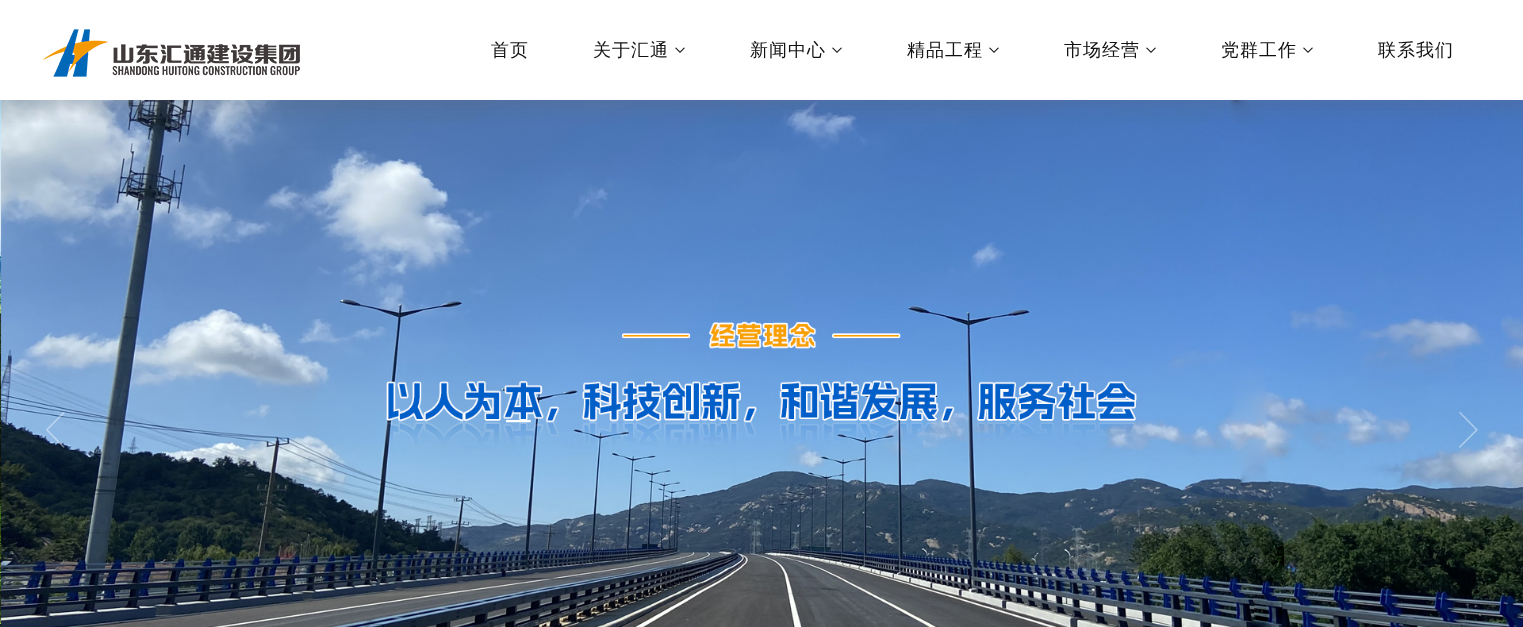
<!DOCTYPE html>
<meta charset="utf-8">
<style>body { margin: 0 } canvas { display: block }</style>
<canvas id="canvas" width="1523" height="627"></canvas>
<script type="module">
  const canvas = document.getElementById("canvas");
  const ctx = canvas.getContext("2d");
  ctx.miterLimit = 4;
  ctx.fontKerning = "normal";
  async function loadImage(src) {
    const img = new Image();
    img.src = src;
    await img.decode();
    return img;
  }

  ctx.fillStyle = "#ffffff";
  ctx.fillRect(0, 0, 1523, 627);
  ctx.drawImage(await loadImage("img3.png"), 0, 100, 1523, 527);
  ctx.save();
  ctx.beginPath();
  ctx.rect(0, 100, 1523, 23);
  ctx.clip();
  ctx.fillStyle = "rgba(100, 100, 100, 0.2)";
  ctx.filter = "blur(10px)";
  ctx.beginPath();
  ctx.rect(-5, 0, 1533, 110);
  ctx.fill();
  ctx.filter = "none";
  ctx.restore();
  ctx.drawImage(await loadImage("img1.png"), 42, 29, 258, 48);
  ctx.letterSpacing = "1px";
  ctx.font = "500 18px WenQuanYi Zen Hei";
  ctx.fillStyle = "#121212";
  ctx.fillText("首页", 491, 56);
  ctx.fillText("关于汇通", 593, 56);
  ctx.drawImage(await loadImage("img2.png"), 675, 47, 10, 6);
  ctx.fillText("新闻中心", 750, 56);
  ctx.drawImage(await loadImage("img2.png"), 832, 47, 10, 6);
  ctx.fillText("精品工程", 907, 56);
  ctx.drawImage(await loadImage("img2.png"), 989, 47, 10, 6);
  ctx.fillText("市场经营", 1064, 56);
  ctx.drawImage(await loadImage("img2.png"), 1146, 47, 10, 6);
  ctx.fillText("党群工作", 1221, 56);
  ctx.drawImage(await loadImage("img2.png"), 1303, 47, 10, 6);
  ctx.fillText("联系我们", 1378, 56);
  ctx.drawImage(await loadImage("img4.png"), 46, 411, 19, 37);
  ctx.drawImage(await loadImage("img5.png"), 1459, 411, 19, 37);
</script>
